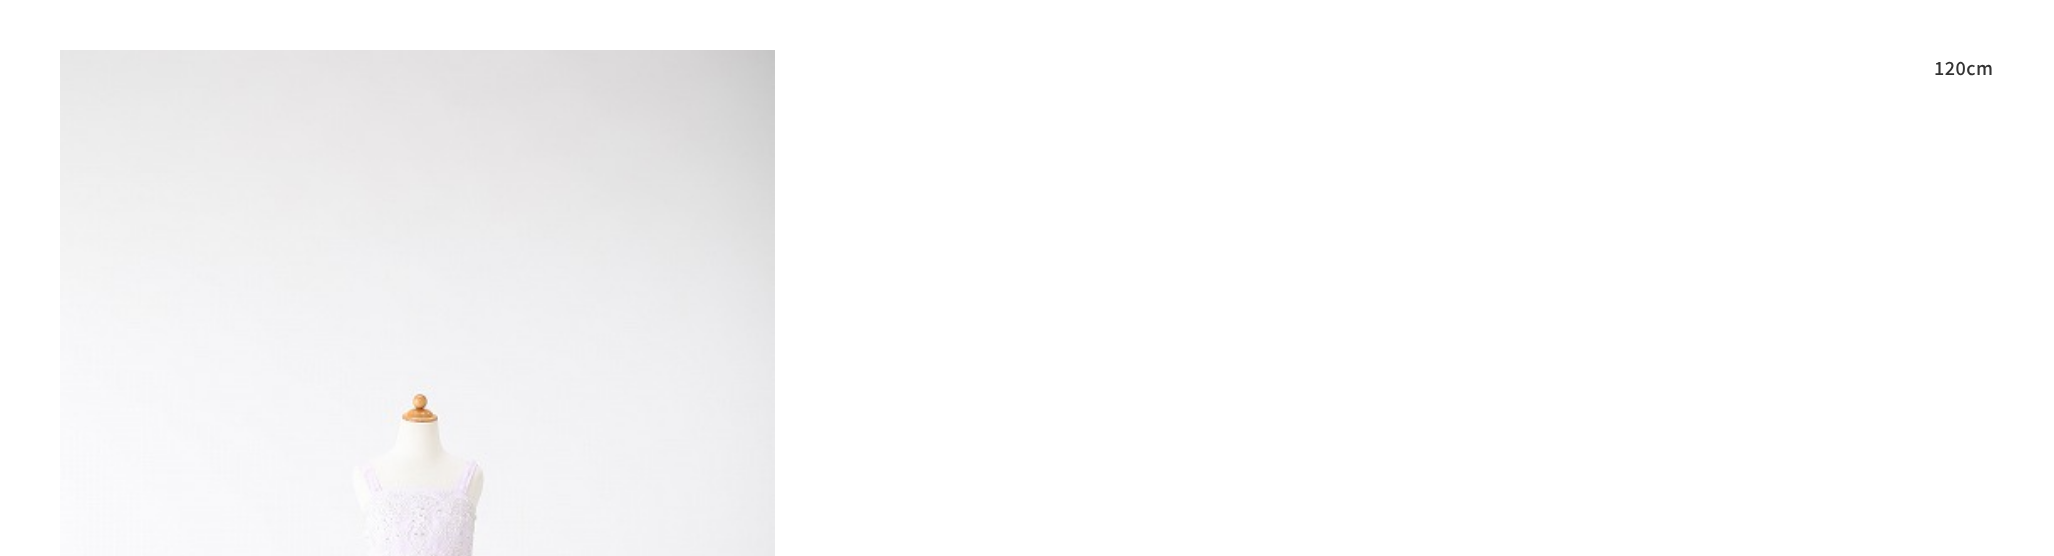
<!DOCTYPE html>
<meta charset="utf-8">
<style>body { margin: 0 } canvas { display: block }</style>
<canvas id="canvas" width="2054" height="556"></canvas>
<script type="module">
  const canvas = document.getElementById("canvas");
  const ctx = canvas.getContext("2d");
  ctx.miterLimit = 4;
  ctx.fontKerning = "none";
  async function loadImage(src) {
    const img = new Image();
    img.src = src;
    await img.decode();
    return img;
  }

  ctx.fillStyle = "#ffffff";
  ctx.fillRect(0, 0, 2054, 556);
  ctx.drawImage(await loadImage("img1.png"), 60, 50, 715, 506);
  ctx.letterSpacing = "0.5px";
  ctx.font = "500 18px Noto Sans JP";
  ctx.fillStyle = "#333333";
  ctx.fillText("120cm", 1934, 75);
</script>
